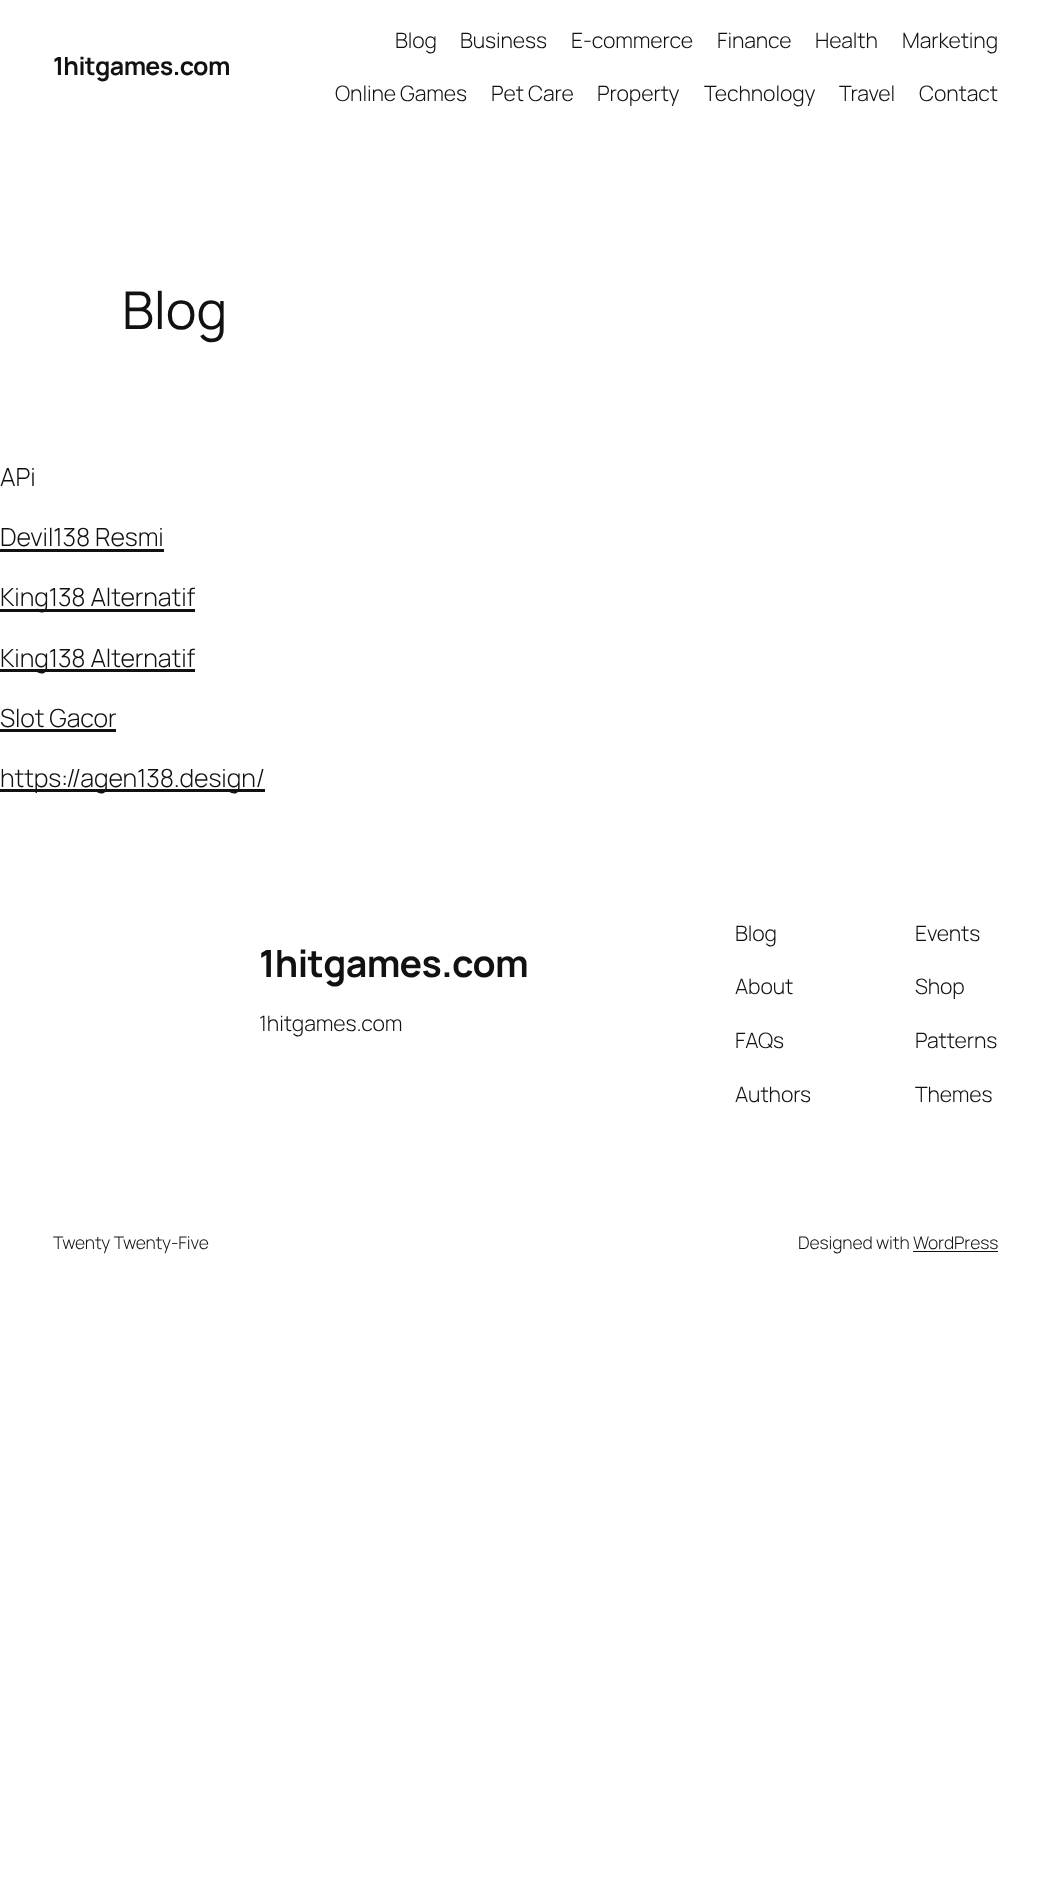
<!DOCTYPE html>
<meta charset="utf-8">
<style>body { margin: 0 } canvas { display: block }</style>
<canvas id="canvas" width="1050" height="1903"></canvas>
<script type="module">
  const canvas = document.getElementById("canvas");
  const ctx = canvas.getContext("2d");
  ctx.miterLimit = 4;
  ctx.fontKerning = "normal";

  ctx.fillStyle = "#ffffff";
  ctx.fillRect(0, 0, 1050, 1903);
  ctx.letterSpacing = "-0.6px";
  ctx.font = "bold 25px Manrope";
  ctx.fillStyle = "#111111";
  ctx.fillText("1hitgames.com", 53, 75);
  ctx.letterSpacing = "-0.1px";
  ctx.font = "300 21.25px Manrope";
  ctx.fillText("Blog", 395, 48);
  ctx.fillText("Business", 460, 48);
  ctx.fillText("E-commerce", 571, 48);
  ctx.fillText("Finance", 717, 48);
  ctx.fillText("Health", 815, 48);
  ctx.fillText("Marketing", 902, 48);
  ctx.fillText("Online Games", 335, 101);
  ctx.fillText("Pet Care", 491, 101);
  ctx.fillText("Property", 597, 101);
  ctx.fillText("Technology", 704, 101);
  ctx.fillText("Travel", 839, 101);
  ctx.fillText("Contact", 919, 101);
  ctx.font = "52px Manrope";
  ctx.fillText("Blog", 122, 329);
  ctx.font = "300 25px Manrope";
  ctx.fillText("APi", 0, 486);
  ctx.fillText("Devil138 Resmi", 0, 546);
  ctx.fillRect(0, 549, 164, 3);
  ctx.fillRect(0, 609, 195, 3);
  ctx.fillText("King138 Alternatif", 0, 606);
  ctx.fillRect(0, 669, 195, 3);
  ctx.fillText("King138 Alternatif", 0, 667);
  ctx.fillText("Slot Gacor", 0, 727);
  ctx.fillRect(0, 729, 116, 3);
  ctx.fillRect(0, 789, 265, 3);
  ctx.fillText("https://agen138.design/", 0, 787);
  ctx.letterSpacing = "-0.6px";
  ctx.font = "bold 37.5px Manrope";
  ctx.fillText("1hitgames.com", 259, 977);
  ctx.letterSpacing = "-0.1px";
  ctx.font = "300 21.25px Manrope";
  ctx.fillText("1hitgames.com", 259, 1031);
  ctx.fillText("Blog", 735, 941);
  ctx.fillText("About", 735, 994);
  ctx.fillText("FAQs", 735, 1048);
  ctx.fillText("Authors", 735, 1102);
  ctx.fillText("Events", 915, 941);
  ctx.fillText("Shop", 915, 994);
  ctx.fillText("Patterns", 915, 1048);
  ctx.fillText("Themes", 915, 1102);
  ctx.font = "300 17.5px Manrope";
  ctx.fillText("Twenty Twenty-Five", 53, 1249);
  ctx.fillText("Designed with WordPress", 798, 1249);
  ctx.fillRect(913, 1251, 85, 1);
</script>
